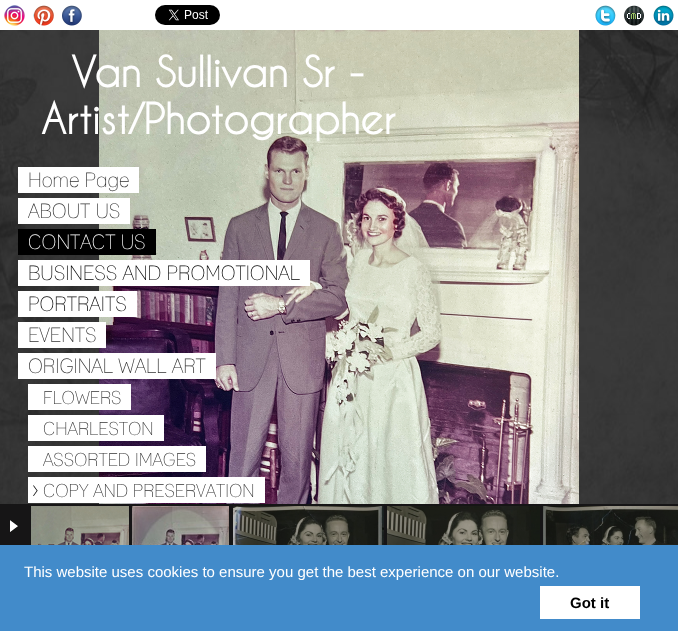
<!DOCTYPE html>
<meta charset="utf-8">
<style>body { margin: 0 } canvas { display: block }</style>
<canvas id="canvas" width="678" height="631"></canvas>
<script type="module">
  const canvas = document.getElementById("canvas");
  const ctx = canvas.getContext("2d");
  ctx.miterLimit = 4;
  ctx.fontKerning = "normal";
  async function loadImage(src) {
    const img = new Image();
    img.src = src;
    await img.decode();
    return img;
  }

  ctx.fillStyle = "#ffffff";
  ctx.fillRect(0, 0, 678, 631);
  ctx.drawImage(await loadImage("img1.png"), 0, 30, 678, 474);
  ctx.drawImage(await loadImage("img2.png"), 4, 5, 21, 21);
  ctx.drawImage(await loadImage("img3.png"), 33, 5, 21, 21);
  ctx.drawImage(await loadImage("img4.png"), 62, 5, 20, 21);
  ctx.drawImage(await loadImage("img5.png"), 155, 5, 65, 20);
  ctx.drawImage(await loadImage("img6.png"), 595, 5, 21, 21);
  ctx.drawImage(await loadImage("img7.png"), 624, 5, 20, 21);
  ctx.drawImage(await loadImage("img8.png"), 653, 5, 21, 21);
  ctx.drawImage(await loadImage("img9.png"), 99, 30, 480, 474);
  ctx.fillStyle = "#161516";
  ctx.fillRect(0, 504, 678, 41);
  ctx.drawImage(await loadImage("img10.png"), 10, 520, 8, 12);
  ctx.drawImage(await loadImage("img11.png"), 31, 506, 98, 39);
  ctx.drawImage(await loadImage("img12.png"), 132, 506, 97, 39);
  ctx.drawImage(await loadImage("img13.png"), 233, 506, 151, 39);
  ctx.drawImage(await loadImage("img14.png"), 387, 506, 153, 39);
  ctx.drawImage(await loadImage("img15.png"), 543, 506, 135, 39);
  ctx.font = "bold 40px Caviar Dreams";
  ctx.fillStyle = "#ffffff";
  ctx.fillText("Van Sullivan Sr -", 71, 87);
  ctx.fillText("Artist/Photographer", 41, 134);
  ctx.fillRect(18, 167, 121, 26);
  ctx.font = "20px 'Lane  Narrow'";
  ctx.fillStyle = "#333333";
  ctx.fillText("Home Page", 28, 187);
  ctx.fillStyle = "#ffffff";
  ctx.fillRect(18, 198, 112, 26);
  ctx.fillStyle = "#333333";
  ctx.fillText("ABOUT US", 28, 218);
  ctx.fillStyle = "#000000";
  ctx.fillRect(18, 229, 138, 26);
  ctx.fillStyle = "#ffffff";
  ctx.fillText("CONTACT US", 28, 249);
  ctx.fillRect(18, 260, 292, 26);
  ctx.fillStyle = "#000000";
  ctx.fillText("BUSINESS AND PROMOTIONAL", 28, 280);
  ctx.fillStyle = "#ffffff";
  ctx.fillRect(18, 291, 119, 26);
  ctx.fillStyle = "#000000";
  ctx.fillText("PORTRAITS", 28, 311);
  ctx.fillStyle = "#ffffff";
  ctx.fillRect(18, 322, 88, 26);
  ctx.fillStyle = "#333333";
  ctx.fillText("EVENTS", 28, 342);
  ctx.fillStyle = "#ffffff";
  ctx.fillRect(18, 353, 198, 26);
  ctx.fillStyle = "#333333";
  ctx.fillText("ORIGINAL WALL ART", 28, 373);
  ctx.fillStyle = "#ffffff";
  ctx.fillRect(28, 384, 103, 26);
  ctx.font = "18px 'Lane  Narrow'";
  ctx.fillStyle = "#333333";
  ctx.fillText("FLOWERS", 43, 404);
  ctx.fillStyle = "#ffffff";
  ctx.fillRect(28, 415, 136, 26);
  ctx.fillStyle = "#333333";
  ctx.fillText("CHARLESTON", 43, 435);
  ctx.fillStyle = "#ffffff";
  ctx.fillRect(28, 446, 178, 26);
  ctx.fillStyle = "#333333";
  ctx.fillText("ASSORTED IMAGES", 43, 466);
  ctx.fillStyle = "#ffffff";
  ctx.fillRect(28, 477, 237, 26);
  ctx.drawImage(await loadImage("img16.png"), 33, 485, 5, 11);
  ctx.fillStyle = "#333333";
  ctx.fillText("COPY AND PRESERVATION", 43, 497);
  ctx.fillStyle = "#428bca";
  ctx.fillRect(0, 545, 678, 86);
  ctx.font = "15px Liberation Sans";
  ctx.fillStyle = "#ffffff";
  ctx.fillText("This website uses cookies to ensure you get the best experience on our website.", 24, 577);
  ctx.fillRect(540, 586, 100, 33);
  ctx.font = "bold 15px Liberation Sans";
  ctx.fillStyle = "#000000";
  ctx.fillText("Got it", 570, 608);
</script>
